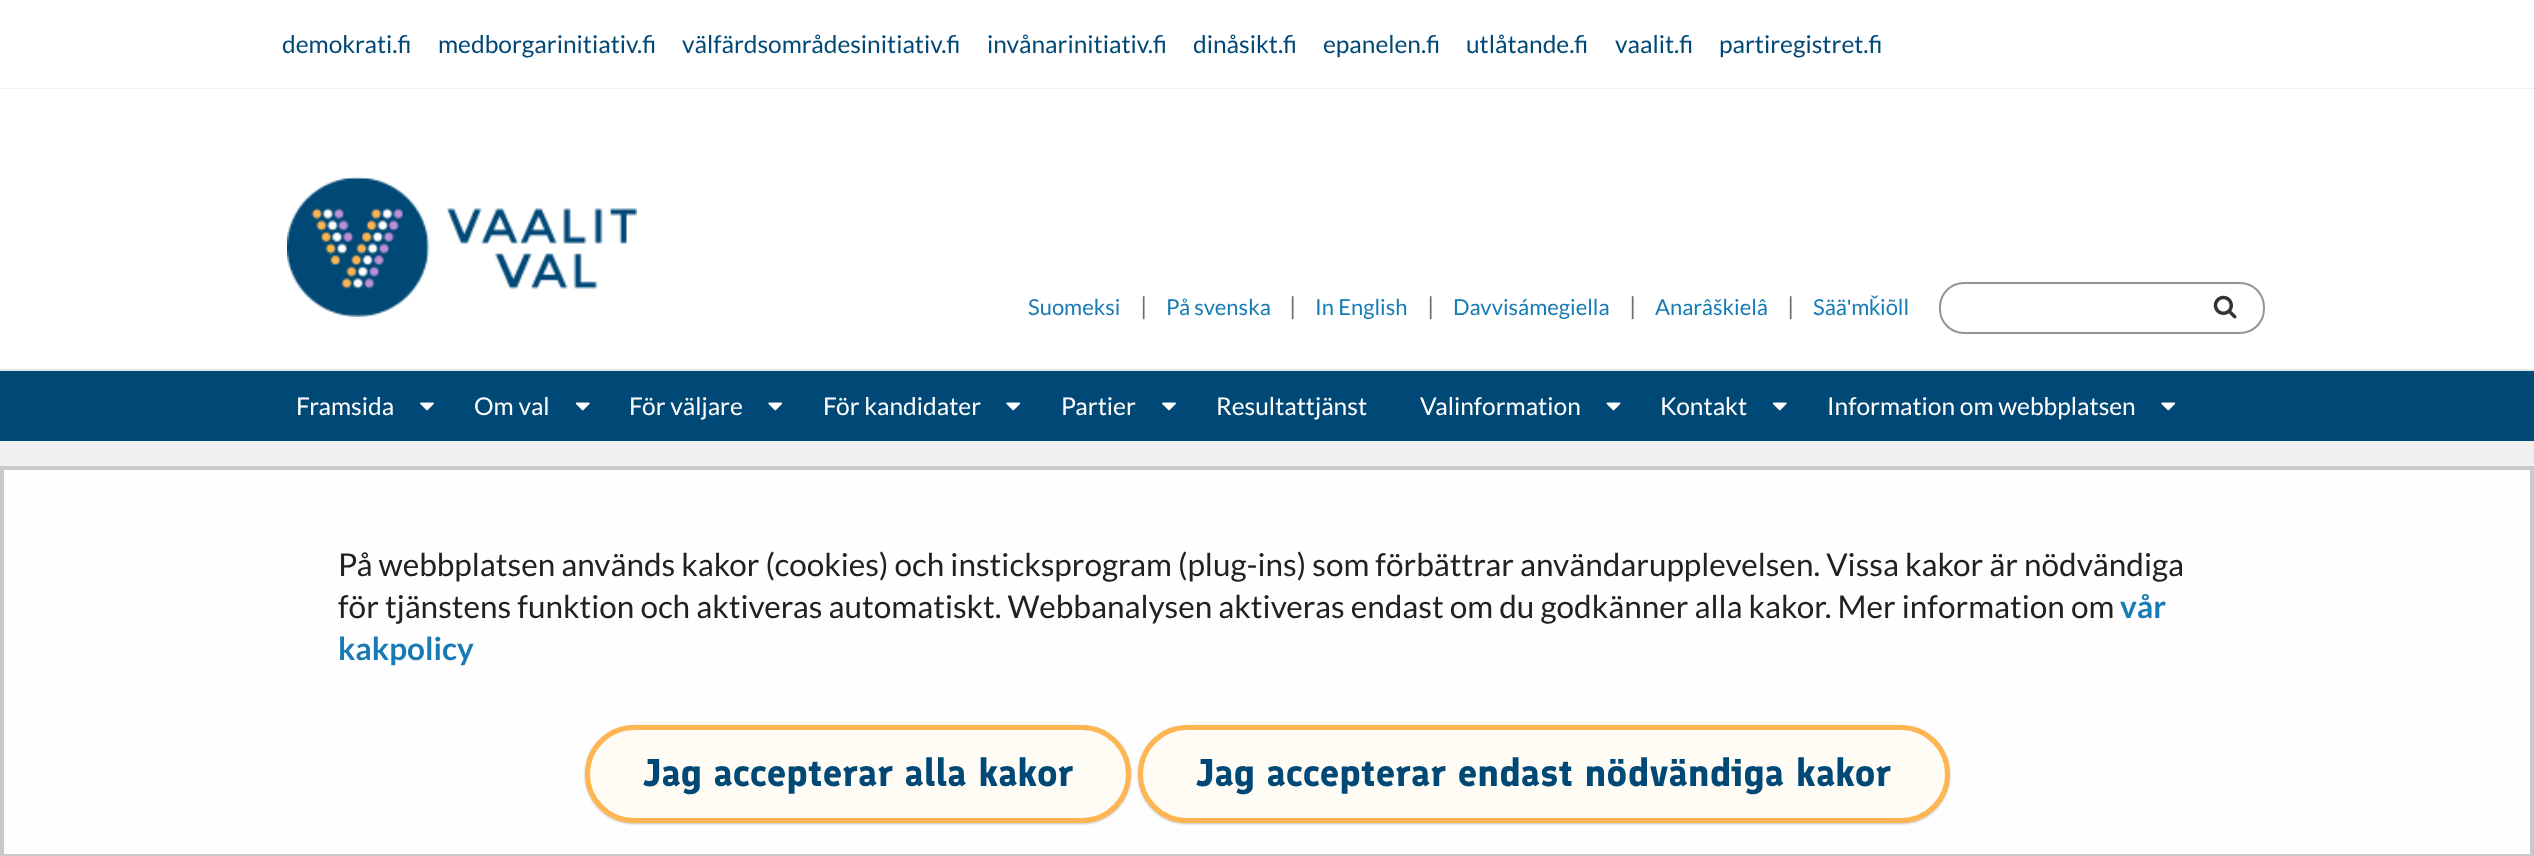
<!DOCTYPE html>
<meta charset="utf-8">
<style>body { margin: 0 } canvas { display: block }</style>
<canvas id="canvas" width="2534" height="856"></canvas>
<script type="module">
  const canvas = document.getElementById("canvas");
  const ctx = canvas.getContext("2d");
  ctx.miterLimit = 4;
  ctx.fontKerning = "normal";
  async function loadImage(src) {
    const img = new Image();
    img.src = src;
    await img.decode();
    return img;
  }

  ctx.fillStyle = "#f0f0f0";
  ctx.fillRect(0, 0, 2534, 856);
  ctx.fillStyle = "#ffffff";
  ctx.fillRect(0, 0, 2534, 88);
  ctx.font = "24.5px Lato";
  ctx.fillStyle = "#004876";
  ctx.fillText("demokrati.fi", 282, 53);
  ctx.fillText("medborgarinitiativ.fi", 438, 53);
  ctx.fillText("välfärdsområdesinitiativ.fi", 682, 53);
  ctx.fillText("invånarinitiativ.fi", 987, 53);
  ctx.fillText("dinåsikt.fi", 1193, 53);
  ctx.fillText("epanelen.fi", 1323, 53);
  ctx.fillText("utlåtande.fi", 1466, 53);
  ctx.fillText("vaalit.fi", 1615, 53);
  ctx.fillText("partiregistret.fi", 1719, 53);
  ctx.fillStyle = "#ffffff";
  ctx.fillRect(0, 89, 2534, 280);
  ctx.fillStyle = "#e6e6e6";
  ctx.fillRect(0, 369, 2534, 2);
  ctx.drawImage(await loadImage("img1.png"), 287, 176, 350, 141);
  ctx.font = "22px Lato";
  ctx.fillStyle = "#177bb5";
  ctx.fillText("Suomeksi", 1028, 315);
  ctx.font = "24.5px Lato";
  ctx.fillStyle = "#6e6f71";
  ctx.fillText("|", 1140, 315);
  ctx.font = "22px Lato";
  ctx.fillStyle = "#177bb5";
  ctx.fillText("På svenska", 1166, 315);
  ctx.font = "24.5px Lato";
  ctx.fillStyle = "#6e6f71";
  ctx.fillText("|", 1289, 315);
  ctx.font = "22px Lato";
  ctx.fillStyle = "#177bb5";
  ctx.fillText("In English", 1315, 315);
  ctx.font = "24.5px Lato";
  ctx.fillStyle = "#6e6f71";
  ctx.fillText("|", 1427, 315);
  ctx.font = "22px Lato";
  ctx.fillStyle = "#177bb5";
  ctx.fillText("Davvisámegiella", 1453, 315);
  ctx.font = "24.5px Lato";
  ctx.fillStyle = "#6e6f71";
  ctx.fillText("|", 1629, 315);
  ctx.font = "22px Lato";
  ctx.fillStyle = "#177bb5";
  ctx.fillText("Anarâškielâ", 1655, 315);
  ctx.font = "24.5px Lato";
  ctx.fillStyle = "#6e6f71";
  ctx.fillText("|", 1787, 315);
  ctx.font = "22px Lato";
  ctx.fillStyle = "#177bb5";
  ctx.fillText("Sää m", 1813, 315);
  ctx.font = "22px Liberation Sans";
  ctx.fillText("ǩ", 1869, 315);
  ctx.font = "22px Lato";
  ctx.fillText("iõll", 1880, 315);
  ctx.font = "22px Liberation Sans";
  ctx.fillText("ʹ", 1847, 315);
  ctx.beginPath();
  ctx.roundRect(1940, 283, 324, 50, 24);
  ctx.strokeStyle = "#949494";
  ctx.lineWidth = 2;
  ctx.stroke();
  ctx.drawImage(await loadImage("img2.png"), 2213, 295, 24, 24);
  ctx.fillStyle = "#004876";
  ctx.fillRect(0, 371, 2534, 70);
  ctx.font = "24.5px Lato";
  ctx.fillStyle = "#ffffff";
  ctx.fillText("Framsida", 296, 415);
  ctx.drawImage(await loadImage("img3.png"), 420, 402, 14, 9);
  ctx.fillText("Om val", 474, 415);
  ctx.drawImage(await loadImage("img4.png"), 575, 402, 15, 9);
  ctx.fillText("För väljare", 629, 415);
  ctx.drawImage(await loadImage("img5.png"), 768, 402, 15, 9);
  ctx.fillText("För kandidater", 823, 415);
  ctx.drawImage(await loadImage("img5.png"), 1006, 402, 15, 9);
  ctx.fillText("Partier", 1061, 415);
  ctx.drawImage(await loadImage("img3.png"), 1162, 402, 14, 9);
  ctx.fillText("Resultattjänst", 1216, 415);
  ctx.fillText("Valinformation", 1420, 415);
  ctx.drawImage(await loadImage("img6.png"), 1606, 402, 15, 9);
  ctx.fillText("Kontakt", 1660, 415);
  ctx.drawImage(await loadImage("img4.png"), 1772, 402, 15, 9);
  ctx.fillText("Information om webbplatsen", 1827, 415);
  ctx.drawImage(await loadImage("img5.png"), 2161, 402, 15, 9);
  ctx.fillStyle = "#fefefe";
  ctx.beginPath();
  ctx.rect(2, 468, 2530, 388);
  ctx.fill();
  ctx.strokeStyle = "#cacaca";
  ctx.lineWidth = 4;
  ctx.stroke();
  ctx.font = "31.5px Lato";
  ctx.fillStyle = "#212121";
  ctx.fillText("På webbplatsen används kakor (cookies) och insticksprogram (plug-ins) som förbättrar användarupplevelsen. Vissa kakor är nödvändiga", 338, 576);
  ctx.fillText("för tjänstens funktion och aktiveras automatiskt. Webbanalysen aktiveras endast om du godkänner alla kakor. Mer information om", 338, 618);
  ctx.font = "bold 31.5px Lato";
  ctx.fillStyle = "#177bb5";
  ctx.fillText("vår", 2120, 618);
  ctx.fillText("kakpolicy", 338, 660);
  ctx.fillStyle = "rgba(0, 0, 0, 0.25)";
  ctx.filter = "blur(1px)";
  ctx.beginPath();
  ctx.roundRect(585, 726, 546, 98, 49);
  ctx.fill();
  ctx.filter = "none";
  ctx.fillStyle = "#fffbf5";
  ctx.beginPath();
  ctx.roundRect(587.5, 727.5, 541, 93, 46.5);
  ctx.fill();
  ctx.strokeStyle = "#feb552";
  ctx.lineWidth = 5;
  ctx.stroke();
  ctx.font = "bold 38.5px Finlandica";
  ctx.fillStyle = "#004876";
  ctx.fillText("Jag accepterar alla kakor", 643, 786);
  ctx.fillStyle = "rgba(0, 0, 0, 0.25)";
  ctx.filter = "blur(1px)";
  ctx.beginPath();
  ctx.roundRect(1138, 726, 812, 98, 49);
  ctx.fill();
  ctx.filter = "none";
  ctx.fillStyle = "#fffbf5";
  ctx.beginPath();
  ctx.roundRect(1140.5, 727.5, 807, 93, 46.5);
  ctx.fill();
  ctx.stroke();
  ctx.fillStyle = "#004876";
  ctx.fillText("Jag accepterar endast nödvändiga kakor", 1196, 786);
</script>
